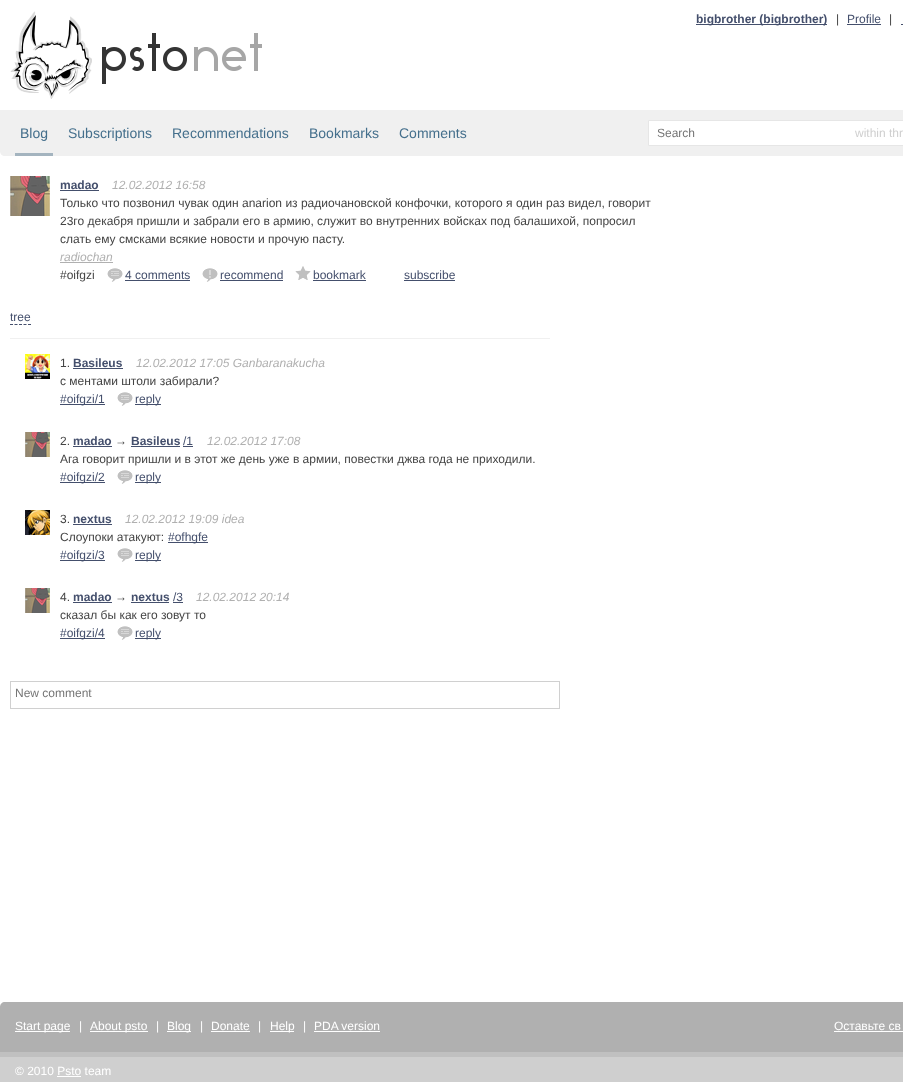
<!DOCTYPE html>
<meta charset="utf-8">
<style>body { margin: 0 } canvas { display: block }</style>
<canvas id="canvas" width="903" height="1082"></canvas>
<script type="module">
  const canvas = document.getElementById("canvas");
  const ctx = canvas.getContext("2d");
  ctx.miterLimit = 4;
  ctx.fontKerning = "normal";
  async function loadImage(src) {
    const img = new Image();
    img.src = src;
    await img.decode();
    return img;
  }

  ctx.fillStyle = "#ffffff";
  ctx.fillRect(0, 0, 903, 1082);
  ctx.drawImage(await loadImage("img1.png"), 10, 11, 252, 88);
  ctx.fillStyle = "#444f6c";
  ctx.fillRect(696, 24, 131, 1);
  ctx.font = "bold 12px Liberation Sans";
  ctx.fillText("bigbrother (bigbrother)", 696, 23);
  ctx.font = "12px Liberation Sans";
  ctx.fillStyle = "#444444";
  ctx.fillText("|", 836, 23);
  ctx.fillStyle = "#444f6c";
  ctx.fillText("Profile", 847, 23);
  ctx.fillRect(847, 24, 34, 1);
  ctx.fillStyle = "#444444";
  ctx.fillText("|", 889, 23);
  ctx.fillStyle = "#444f6c";
  ctx.fillRect(901, 24, 2, 1);
  ctx.fillStyle = "#f0f0f0";
  ctx.beginPath();
  ctx.moveTo(0, 110);
  ctx.lineTo(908, 110);
  ctx.lineTo(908, 151);
  ctx.bezierCurveTo(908, 154, 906, 156, 903, 156);
  ctx.lineTo(5, 156);
  ctx.bezierCurveTo(2, 156, 0, 154, 0, 151);
  ctx.closePath();
  ctx.fill();
  ctx.fillStyle = "#a4b4bf";
  ctx.fillRect(15, 153, 38, 3);
  ctx.font = "14px Liberation Sans";
  ctx.fillStyle = "#446f8c";
  ctx.fillText("Blog", 20, 138);
  ctx.fillText("Subscriptions", 68, 138);
  ctx.fillText("Recommendations", 172, 138);
  ctx.fillText("Bookmarks", 309, 138);
  ctx.fillText("Comments", 399, 138);
  ctx.fillStyle = "#ffffff";
  ctx.beginPath();
  ctx.rect(648.5, 120.5, 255, 25);
  ctx.fill();
  ctx.strokeStyle = "#e6e6e6";
  ctx.stroke();
  ctx.font = "12px Liberation Sans";
  ctx.fillStyle = "#757575";
  ctx.fillText("Search", 657, 137);
  ctx.fillStyle = "#cfcfcf";
  ctx.fillText("within thr", 855, 137);
  ctx.drawImage(await loadImage("img2.png"), 10, 176, 40, 40);
  ctx.font = "bold 12px Liberation Sans";
  ctx.fillStyle = "#444f6c";
  ctx.fillText("madao", 60, 189);
  ctx.fillRect(60, 190, 39, 1);
  ctx.font = "italic 12px Liberation Sans";
  ctx.fillStyle = "#b0b0b0";
  ctx.fillText("12.02.2012 16:58", 112, 189);
  ctx.font = "12px Liberation Sans";
  ctx.fillStyle = "#444444";
  ctx.fillText("Только что позвонил чувак один anarion из радиочановской конфочки, которого я один раз видел, говорит", 60, 207);
  ctx.fillText("23го декабря пришли и забрали его в армию, служит во внутренних войсках под балашихой, попросил", 60, 225);
  ctx.fillText("слать ему смсками всякие новости и прочую пасту.", 60, 243);
  ctx.font = "italic 12px Liberation Sans";
  ctx.fillStyle = "#b0b0b0";
  ctx.fillText("radiochan", 60, 261);
  ctx.fillRect(60, 262, 53, 1);
  ctx.font = "12px Liberation Sans";
  ctx.fillStyle = "#444444";
  ctx.fillText("#oifgzi", 60, 279);
  ctx.drawImage(await loadImage("img3.png"), 107, 268, 16, 14);
  ctx.fillStyle = "#444f6c";
  ctx.fillText("4 comments", 125, 279);
  ctx.fillRect(125, 280, 65, 1);
  ctx.drawImage(await loadImage("img4.png"), 202, 268, 16, 14);
  ctx.fillText("recommend", 220, 279);
  ctx.fillRect(220, 280, 63, 1);
  ctx.drawImage(await loadImage("img5.png"), 295, 266, 16, 14);
  ctx.fillText("bookmark", 313, 279);
  ctx.fillRect(313, 280, 53, 1);
  ctx.fillText("subscribe", 404, 279);
  ctx.fillRect(404, 280, 51, 1);
  ctx.fillText("tree", 10, 321);
  ctx.beginPath();
  ctx.moveTo(10, 324.5);
  ctx.lineTo(31, 324.5);
  ctx.strokeStyle = "#444f6c";
  ctx.setLineDash([3, 1.5]);
  ctx.stroke();
  ctx.fillStyle = "#f0f0f0";
  ctx.fillRect(10, 338, 540, 1);
  ctx.drawImage(await loadImage("img6.png"), 25, 354, 25, 25);
  ctx.fillStyle = "#444444";
  ctx.fillText("1.", 60, 367);
  ctx.font = "bold 12px Liberation Sans";
  ctx.fillStyle = "#444f6c";
  ctx.fillText("Basileus", 73, 367);
  ctx.fillRect(73, 368, 50, 1);
  ctx.font = "italic 12px Liberation Sans";
  ctx.fillStyle = "#b0b0b0";
  ctx.fillText("12.02.2012 17:05 Ganbaranakucha", 136, 367);
  ctx.font = "12px Liberation Sans";
  ctx.fillStyle = "#444444";
  ctx.fillText("с ментами штоли забирали?", 60, 385);
  ctx.fillStyle = "#444f6c";
  ctx.fillRect(60, 404, 45, 1);
  ctx.fillText("#oifgzi/1", 60, 403);
  ctx.drawImage(await loadImage("img3.png"), 117, 392, 16, 14);
  ctx.fillRect(135, 404, 26, 1);
  ctx.fillText("reply", 135, 403);
  ctx.drawImage(await loadImage("img7.png"), 25, 432, 25, 25);
  ctx.fillStyle = "#444444";
  ctx.fillText("2.", 60, 445);
  ctx.font = "bold 12px Liberation Sans";
  ctx.fillStyle = "#444f6c";
  ctx.fillText("madao", 73, 445);
  ctx.fillRect(73, 446, 39, 1);
  ctx.font = "12px Liberation Sans";
  ctx.fillStyle = "#444444";
  ctx.fillText("→", 115, 445);
  ctx.font = "bold 12px Liberation Sans";
  ctx.fillStyle = "#444f6c";
  ctx.fillText("Basileus", 131, 445);
  ctx.fillRect(131, 446, 49, 1);
  ctx.font = "12px Liberation Sans";
  ctx.fillText("/1", 183, 445);
  ctx.fillRect(183, 446, 10, 1);
  ctx.font = "italic 12px Liberation Sans";
  ctx.fillStyle = "#b0b0b0";
  ctx.fillText("12.02.2012 17:08", 207, 445);
  ctx.font = "12px Liberation Sans";
  ctx.fillStyle = "#444444";
  ctx.fillText("Ага говорит пришли и в этот же день уже в армии, повестки джва года не приходили.", 60, 463);
  ctx.fillStyle = "#444f6c";
  ctx.fillRect(60, 482, 45, 1);
  ctx.fillText("#oifgzi/2", 60, 481);
  ctx.drawImage(await loadImage("img3.png"), 117, 470, 16, 14);
  ctx.fillRect(135, 482, 26, 1);
  ctx.fillText("reply", 135, 481);
  ctx.drawImage(await loadImage("img8.png"), 25, 510, 25, 25);
  ctx.fillStyle = "#444444";
  ctx.fillText("3.", 60, 523);
  ctx.font = "bold 12px Liberation Sans";
  ctx.fillStyle = "#444f6c";
  ctx.fillText("nextus", 73, 523);
  ctx.fillRect(73, 524, 39, 1);
  ctx.font = "italic 12px Liberation Sans";
  ctx.fillStyle = "#b0b0b0";
  ctx.fillText("12.02.2012 19:09 idea", 125, 523);
  ctx.font = "12px Liberation Sans";
  ctx.fillStyle = "#444444";
  ctx.fillText("Слоупоки атакуют:", 60, 541);
  ctx.fillStyle = "#444f6c";
  ctx.fillRect(168, 542, 40, 1);
  ctx.fillText("#ofhgfe", 168, 541);
  ctx.fillRect(60, 560, 45, 1);
  ctx.fillText("#oifgzi/3", 60, 559);
  ctx.drawImage(await loadImage("img3.png"), 117, 548, 16, 14);
  ctx.fillRect(135, 560, 26, 1);
  ctx.fillText("reply", 135, 559);
  ctx.drawImage(await loadImage("img7.png"), 25, 588, 25, 25);
  ctx.fillStyle = "#444444";
  ctx.fillText("4.", 60, 601);
  ctx.font = "bold 12px Liberation Sans";
  ctx.fillStyle = "#444f6c";
  ctx.fillText("madao", 73, 601);
  ctx.fillRect(73, 602, 39, 1);
  ctx.font = "12px Liberation Sans";
  ctx.fillStyle = "#444444";
  ctx.fillText("→", 115, 601);
  ctx.font = "bold 12px Liberation Sans";
  ctx.fillStyle = "#444f6c";
  ctx.fillText("nextus", 131, 601);
  ctx.fillRect(131, 602, 38, 1);
  ctx.font = "12px Liberation Sans";
  ctx.fillText("/3", 173, 601);
  ctx.fillRect(173, 602, 10, 1);
  ctx.font = "italic 12px Liberation Sans";
  ctx.fillStyle = "#b0b0b0";
  ctx.fillText("12.02.2012 20:14", 196, 601);
  ctx.font = "12px Liberation Sans";
  ctx.fillStyle = "#444444";
  ctx.fillText("сказал бы как его зовут то", 60, 619);
  ctx.fillStyle = "#444f6c";
  ctx.fillRect(60, 638, 45, 1);
  ctx.fillText("#oifgzi/4", 60, 637);
  ctx.drawImage(await loadImage("img3.png"), 117, 626, 16, 14);
  ctx.fillRect(135, 638, 26, 1);
  ctx.fillText("reply", 135, 637);
  ctx.strokeStyle = "#d0d0d0";
  ctx.setLineDash([]);
  ctx.strokeRect(10.5, 681.5, 549, 27);
  ctx.fillStyle = "#757575";
  ctx.fillText("New comment", 15, 697);
  ctx.fillStyle = "#b0b0b0";
  ctx.beginPath();
  ctx.moveTo(5, 1002);
  ctx.lineTo(903, 1002);
  ctx.bezierCurveTo(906, 1002, 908, 1004, 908, 1007);
  ctx.lineTo(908, 1052);
  ctx.lineTo(0, 1052);
  ctx.lineTo(0, 1007);
  ctx.bezierCurveTo(0, 1004, 2, 1002, 5, 1002);
  ctx.closePath();
  ctx.fill();
  ctx.fillStyle = "#ffffff";
  ctx.fillRect(15, 1031, 55, 1);
  ctx.fillText("Start page", 15, 1030);
  ctx.fillText("|", 79, 1030);
  ctx.fillRect(90, 1031, 58, 1);
  ctx.fillText("About psto", 90, 1030);
  ctx.fillText("|", 156, 1030);
  ctx.fillRect(167, 1031, 24, 1);
  ctx.fillText("Blog", 167, 1030);
  ctx.fillText("|", 200, 1030);
  ctx.fillText("Donate", 211, 1030);
  ctx.fillRect(211, 1031, 39, 1);
  ctx.fillText("|", 258, 1030);
  ctx.fillRect(270, 1031, 24, 1);
  ctx.fillText("Help", 270, 1030);
  ctx.fillText("|", 303, 1030);
  ctx.fillText("PDA version", 314, 1030);
  ctx.fillRect(314, 1031, 66, 1);
  ctx.fillText("Оставьте св", 834, 1030);
  ctx.fillRect(834, 1031, 69, 1);
  ctx.fillStyle = "#cfcfcf";
  ctx.fillRect(0, 1057, 903, 25);
  ctx.fillStyle = "#c0c0c0";
  ctx.fillRect(0, 1052, 903, 5);
  ctx.fillStyle = "#ffffff";
  ctx.fillText("© 2010 Psto team", 15, 1075);
  ctx.fillRect(57, 1076, 24, 1);
</script>
